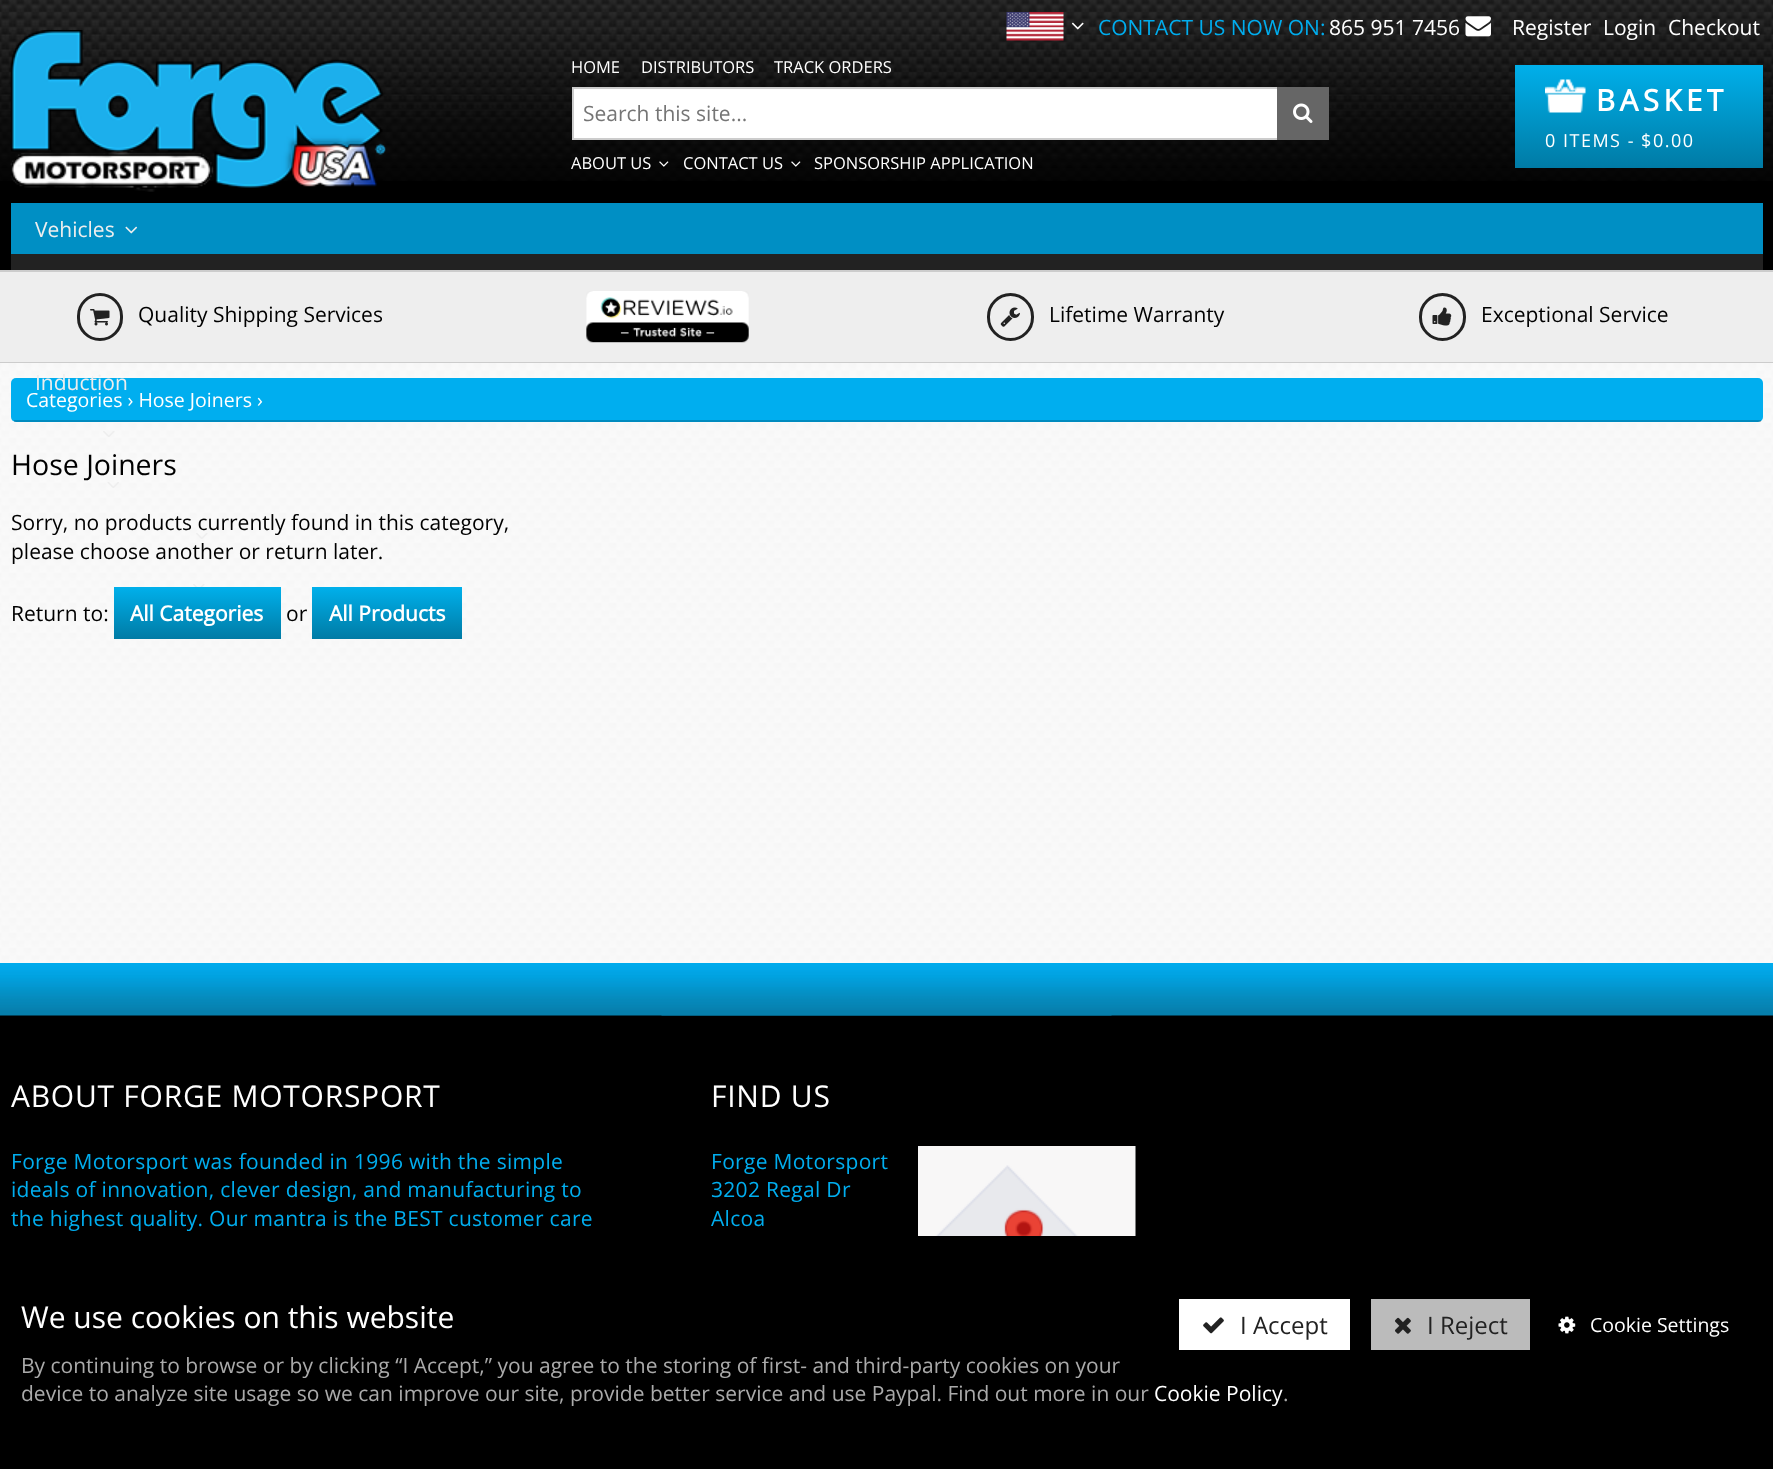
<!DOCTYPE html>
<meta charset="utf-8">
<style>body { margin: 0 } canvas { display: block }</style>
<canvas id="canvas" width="1773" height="1469"></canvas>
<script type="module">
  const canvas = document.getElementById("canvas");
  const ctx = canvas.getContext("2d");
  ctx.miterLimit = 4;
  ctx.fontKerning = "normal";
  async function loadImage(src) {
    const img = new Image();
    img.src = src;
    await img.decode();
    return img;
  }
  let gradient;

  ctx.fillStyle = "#000000";
  ctx.fillRect(0, 0, 1773, 1469);
  ctx.drawImage(await loadImage("img1.png"), 0, 0, 1773, 181);
  ctx.drawImage(await loadImage("img2.png"), 1006, 12, 58, 29);
  ctx.drawImage(await loadImage("img3.png"), 1071, 22, 13, 8);
  ctx.font = "21px Open Sans";
  ctx.fillStyle = "#00adee";
  ctx.fillText("CONTACT US NOW ON:", 1098, 35);
  ctx.fillStyle = "#ffffff";
  ctx.fillText("865 951 7456", 1329, 35);
  ctx.drawImage(await loadImage("img4.png"), 1465, 16, 26, 21);
  ctx.fillText("Register", 1512, 35);
  ctx.fillText("Login", 1603, 35);
  ctx.fillText("Checkout", 1668, 35);
  ctx.drawImage(await loadImage("img5.png"), 10, 30, 376, 162);
  ctx.font = "16.5px Open Sans";
  ctx.fillText("HOME", 571, 73);
  ctx.fillText("DISTRIBUTORS", 641, 73);
  ctx.fillText("TRACK ORDERS", 774, 73);
  ctx.fillRect(574, 89, 703, 49);
  ctx.strokeStyle = "#cccccc";
  ctx.lineWidth = 2;
  ctx.strokeRect(573, 88, 755, 51);
  ctx.font = "21px Open Sans";
  ctx.fillStyle = "#757575";
  ctx.fillText("Search this site...", 583, 121);
  ctx.fillStyle = "#666666";
  ctx.fillRect(1277, 87, 52, 53);
  ctx.drawImage(await loadImage("img6.png"), 1293, 103, 20, 20);
  ctx.font = "16.5px Open Sans";
  ctx.fillStyle = "#ffffff";
  ctx.fillText("ABOUT US", 571, 169);
  ctx.drawImage(await loadImage("img7.png"), 659, 161, 10, 6);
  ctx.fillText("CONTACT US", 683, 169);
  ctx.drawImage(await loadImage("img8.png"), 791, 161, 10, 6);
  ctx.fillText("SPONSORSHIP APPLICATION", 814, 169);
  gradient = ctx.createLinearGradient(1639, 64, 1639, 168);
  gradient.addColorStop(0, "#00b0eb");
  gradient.addColorStop(1, "#007ba5");
  ctx.fillStyle = gradient;
  ctx.fillRect(1515, 65, 248, 103);
  ctx.drawImage(await loadImage("img9.png"), 1545, 79, 41, 34);
  ctx.letterSpacing = "4.5px";
  ctx.font = "bold 29.5px Open Sans";
  ctx.fillStyle = "#ffffff";
  ctx.fillText("BASKET", 1596, 111);
  ctx.letterSpacing = "1.5px";
  ctx.font = "18px Open Sans";
  ctx.fillText("0 ITEMS - $0.00", 1545, 147);
  ctx.fillStyle = "#222222";
  ctx.fillRect(11, 254, 1752, 16);
  ctx.fillStyle = "#008fc4";
  ctx.fillRect(11, 203, 1752, 51);
  ctx.letterSpacing = "0px";
  ctx.font = "21px Open Sans";
  ctx.fillStyle = "#eeeeee";
  ctx.fillText("Vehicles", 35, 237);
  ctx.drawImage(await loadImage("img10.png"), 125, 226, 13, 8);
  ctx.drawImage(await loadImage("img19.png"), 0, 363, 1773, 600);
  ctx.fillStyle = "#00aeef";
  ctx.beginPath();
  ctx.roundRect(11, 378, 1752, 44, 5);
  ctx.fill();
  ctx.fillStyle = "#eeeeee";
  ctx.fillText("Induction", 35, 390);
  ctx.drawImage(await loadImage("img11.png"), 103, 431, 12, 6);
  ctx.drawImage(await loadImage("img12.png"), 107, 482, 12, 6);
  ctx.fillStyle = "#000000";
  ctx.fillText("Sorry, no products currently found in this category,", 11, 530);
  ctx.drawImage(await loadImage("img13.png"), 196, 533, 12, 6);
  ctx.drawImage(await loadImage("img14.png"), 193, 584, 12, 3);
  ctx.fillStyle = "#eeeeee";
  ctx.fillRect(0, 272, 1773, 90);
  ctx.fillStyle = "#cccccc";
  ctx.fillRect(0, 270, 1773, 2);
  ctx.fillRect(0, 362, 1773, 1);
  ctx.beginPath();
  ctx.roundRect(78.5, 294.5, 43, 45, 21.5);
  ctx.strokeStyle = "#222222";
  ctx.lineWidth = 3;
  ctx.stroke();
  ctx.drawImage(await loadImage("img15.png"), 90, 309, 20, 17);
  ctx.fillStyle = "#000000";
  ctx.fillText("Quality Shipping Services", 138, 322);
  ctx.drawImage(await loadImage("img16.png"), 586, 291, 163, 52);
  ctx.beginPath();
  ctx.roundRect(988.5, 294.5, 44, 45, 22);
  ctx.stroke();
  ctx.drawImage(await loadImage("img17.png"), 1000, 307, 20, 20);
  ctx.fillText("Lifetime Warranty", 1049, 322);
  ctx.beginPath();
  ctx.roundRect(1420.5, 294.5, 44, 45, 22);
  ctx.stroke();
  ctx.drawImage(await loadImage("img18.png"), 1432, 307, 20, 19);
  ctx.fillText("Exceptional Service", 1481, 322);
  ctx.fillStyle = "rgba(0, 0, 0, 0.2)";
  ctx.fillRect(14, 420, 1747, 2);
  ctx.font = "19.5px Open Sans";
  ctx.fillStyle = "#ffffff";
  ctx.fillText("Categories › Hose Joiners ›", 26, 407);
  ctx.font = "28.5px Open Sans";
  ctx.fillStyle = "#000000";
  ctx.fillText("Hose Joiners", 11, 475);
  ctx.font = "21px Open Sans";
  ctx.fillText("please choose another or return later.", 11, 559);
  ctx.fillText("Return to:", 11, 621);
  gradient = ctx.createLinearGradient(197, 587, 197, 639);
  gradient.addColorStop(0, "#00b0eb");
  gradient.addColorStop(1, "#007ba5");
  ctx.fillStyle = gradient;
  ctx.fillRect(114, 587, 167, 52);
  ctx.font = "bold 21px Open Sans";
  ctx.fillStyle = "#ffffff";
  ctx.fillText("All Categories", 130, 621);
  ctx.font = "21px Open Sans";
  ctx.fillStyle = "#000000";
  ctx.fillText("or", 286, 621);
  gradient = ctx.createLinearGradient(387, 587, 387, 639);
  gradient.addColorStop(0, "#00b0eb");
  gradient.addColorStop(1, "#007ba5");
  ctx.fillStyle = gradient;
  ctx.fillRect(312, 587, 150, 52);
  ctx.font = "bold 21px Open Sans";
  ctx.fillStyle = "#ffffff";
  ctx.fillText("All Products", 329, 621);
  ctx.drawImage(await loadImage("img20.png"), 0, 963, 1773, 53);
  ctx.drawImage(await loadImage("img21.png"), 661, 1015, 451, 1);
  ctx.letterSpacing = "0.75px";
  ctx.font = "30px Open Sans";
  ctx.fillText("ABOUT FORGE MOTORSPORT", 11, 1107);
  ctx.letterSpacing = "0.3px";
  ctx.font = "21px Open Sans";
  ctx.fillStyle = "#00adee";
  ctx.fillText("Forge Motorsport was founded in 1996 with the simple", 11, 1169);
  ctx.fillText("ideals of innovation, clever design, and manufacturing to", 11, 1197);
  ctx.fillText("the highest quality. Our mantra is the BEST customer care", 11, 1226);
  ctx.letterSpacing = "0.75px";
  ctx.font = "30px Open Sans";
  ctx.fillStyle = "#ffffff";
  ctx.fillText("FIND US", 711, 1107);
  ctx.letterSpacing = "0.3px";
  ctx.font = "21px Open Sans";
  ctx.fillStyle = "#00adee";
  ctx.fillText("Forge Motorsport", 711, 1169);
  ctx.fillText("3202 Regal Dr", 711, 1197);
  ctx.fillText("Alcoa", 711, 1226);
  ctx.drawImage(await loadImage("img22.png"), 918, 1146, 218, 90);
  ctx.letterSpacing = "0px";
  ctx.font = "30px Open Sans";
  ctx.fillStyle = "#ffffff";
  ctx.fillText("We use cookies on this website", 21, 1328);
  ctx.fillRect(1179, 1299, 171, 51);
  ctx.drawImage(await loadImage("img23.png"), 1203, 1317, 21, 17);
  ctx.font = "24px Open Sans";
  ctx.fillStyle = "#222222";
  ctx.fillText("I Accept", 1240, 1334);
  ctx.fillStyle = "#bbbbbb";
  ctx.fillRect(1371, 1299, 159, 51);
  ctx.drawImage(await loadImage("img24.png"), 1395, 1317, 16, 17);
  ctx.fillStyle = "#222222";
  ctx.fillText("I Reject", 1427, 1334);
  ctx.drawImage(await loadImage("img25.png"), 1558, 1316, 18, 18);
  ctx.font = "19.5px Open Sans";
  ctx.fillStyle = "#ffffff";
  ctx.fillText("Cookie Settings", 1590, 1332);
  ctx.font = "21px Open Sans";
  ctx.fillStyle = "#aaaaaa";
  ctx.fillText("By continuing to browse or by clicking “I Accept,” you agree to the storing of first- and third-party cookies on your", 21, 1373);
  ctx.fillText("device to analyze site usage so we can improve our site, provide better service and use Paypal. Find out more in our", 21, 1401);
  ctx.fillStyle = "#ffffff";
  ctx.fillText("Cookie Policy", 1154, 1401);
  ctx.fillStyle = "#aaaaaa";
  ctx.fillText(".", 1283, 1401);
</script>
